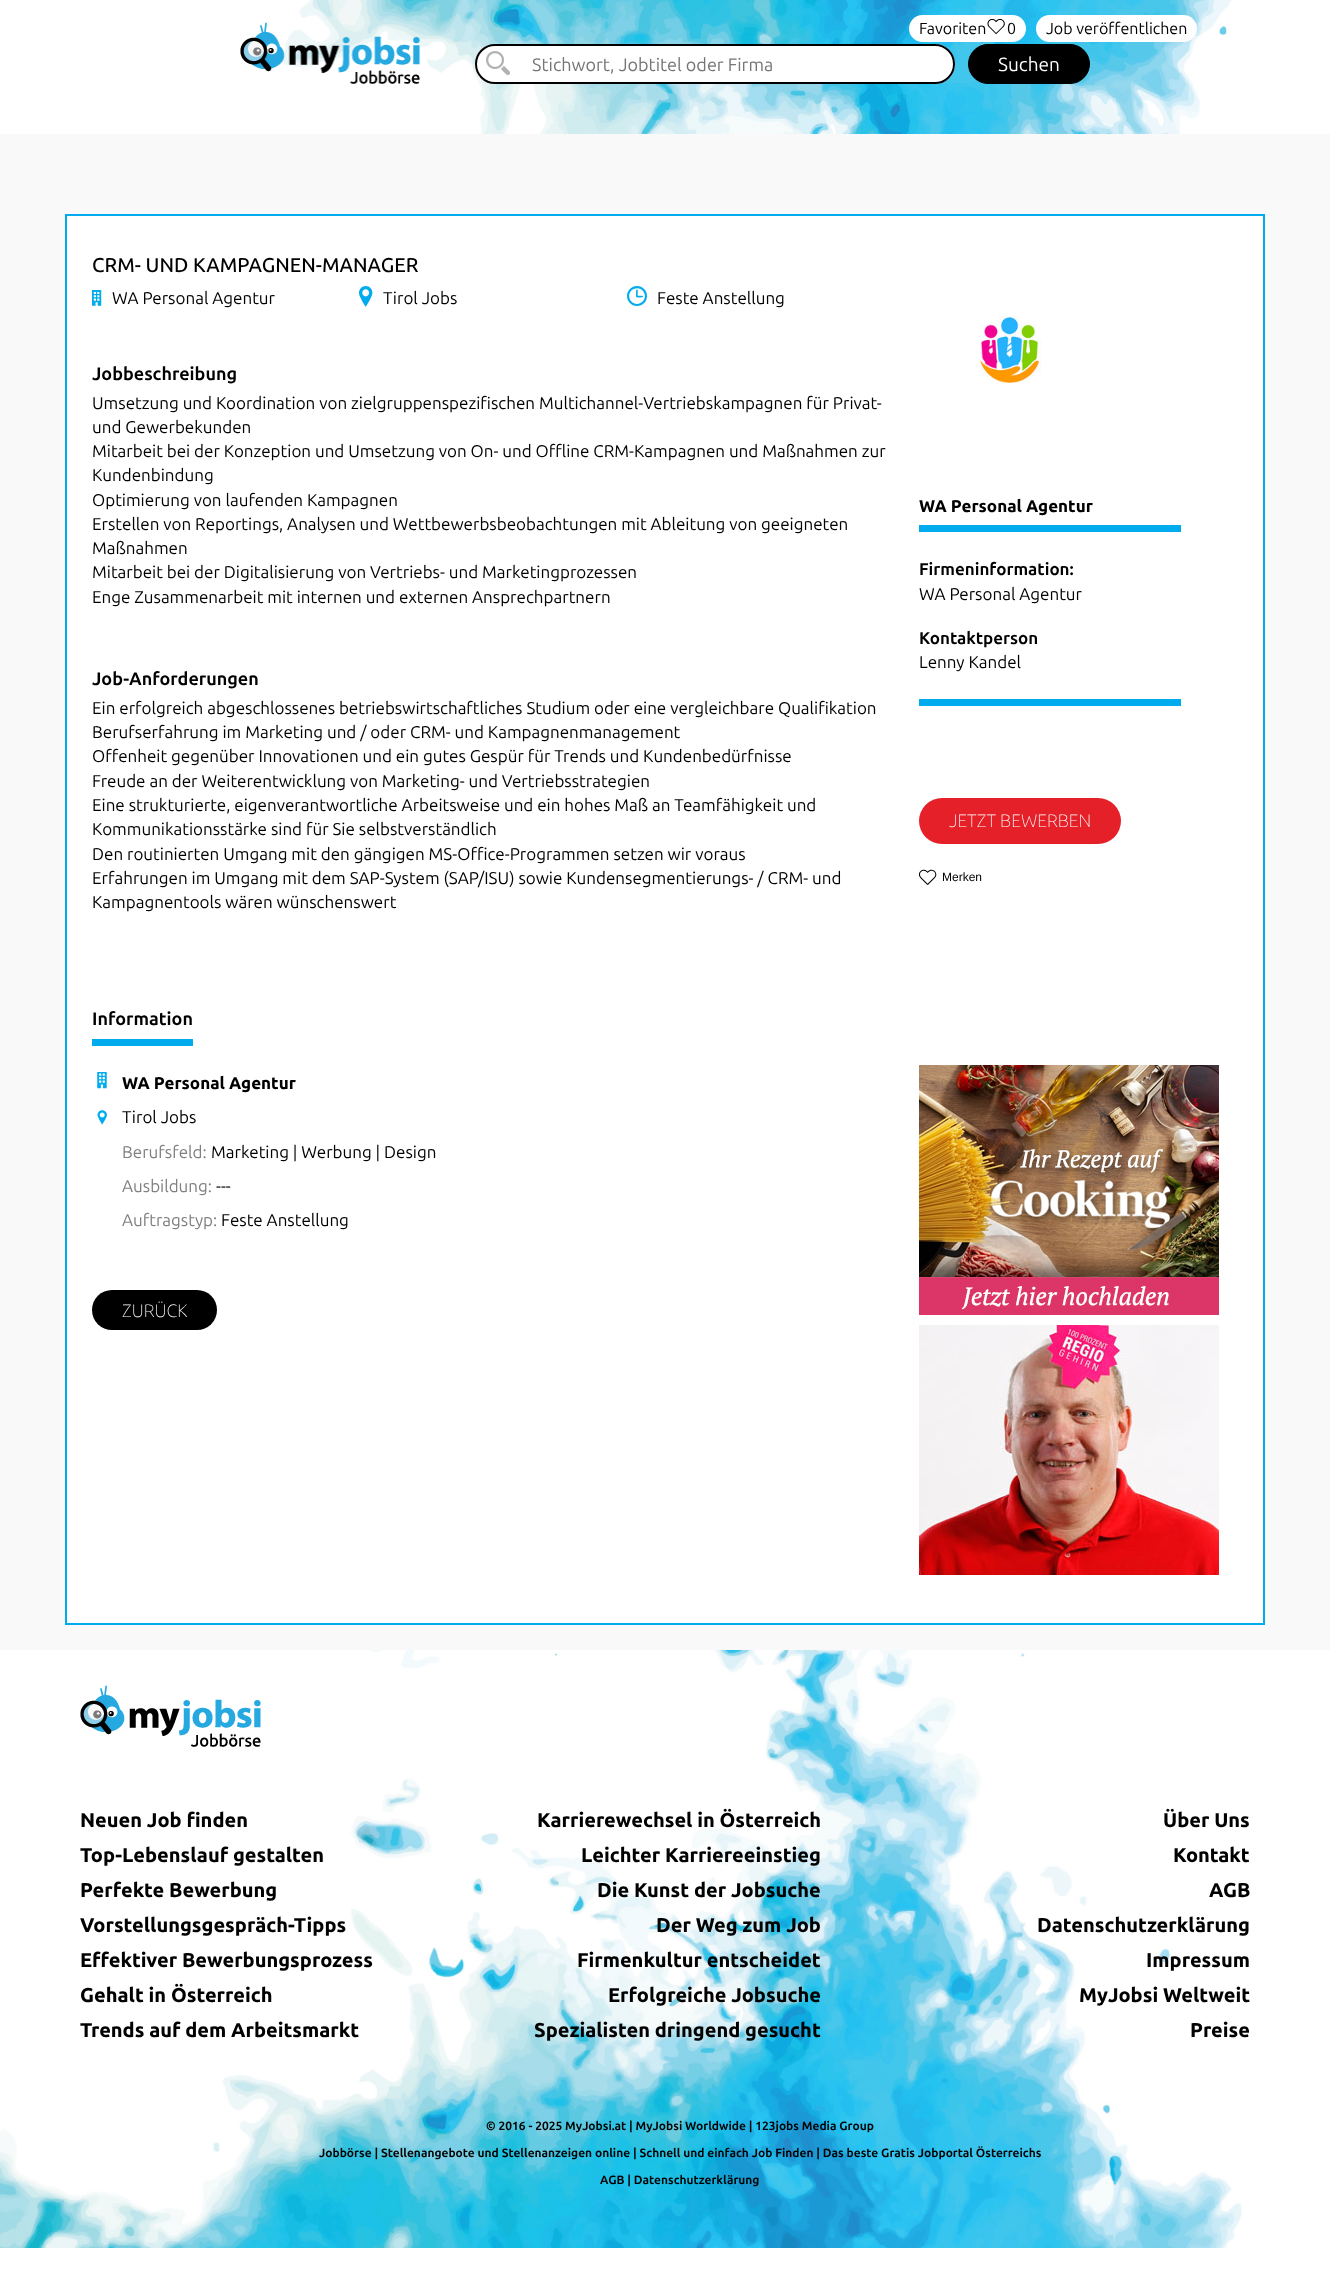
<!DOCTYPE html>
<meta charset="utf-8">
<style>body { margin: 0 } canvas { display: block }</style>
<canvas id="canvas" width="1330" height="2290"></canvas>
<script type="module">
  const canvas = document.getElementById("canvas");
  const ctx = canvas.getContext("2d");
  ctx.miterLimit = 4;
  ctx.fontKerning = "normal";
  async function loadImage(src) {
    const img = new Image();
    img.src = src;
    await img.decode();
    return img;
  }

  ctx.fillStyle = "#ffffff";
  ctx.fillRect(0, 0, 1330, 2290);
  ctx.drawImage(await loadImage("img1.png"), 281, 0, 1049, 134);
  ctx.beginPath();
  ctx.roundRect(909, 15, 117, 27, 13.5);
  ctx.fill();
  ctx.font = "16px Ubuntu";
  ctx.fillStyle = "#000000";
  ctx.fillText("Favoriten", 919, 34);
  ctx.drawImage(await loadImage("img2.png"), 987, 19, 18, 15);
  ctx.fillText("0", 1007, 34);
  ctx.fillStyle = "#ffffff";
  ctx.beginPath();
  ctx.roundRect(1036, 15, 161, 27, 13.5);
  ctx.fill();
  ctx.fillStyle = "#000000";
  ctx.fillText("Job veröffentlichen", 1046, 34);
  ctx.drawImage(await loadImage("img3.png"), 240, 22, 180, 62);
  ctx.fillStyle = "#ffffff";
  ctx.beginPath();
  ctx.roundRect(475, 44, 480, 40, 20);
  ctx.fill();
  ctx.drawImage(await loadImage("img4.png"), 486, 51, 24, 24);
  ctx.beginPath();
  ctx.roundRect(476, 45, 478, 38, 19);
  ctx.strokeStyle = "#000000";
  ctx.lineWidth = 2;
  ctx.stroke();
  ctx.font = "18px Ubuntu";
  ctx.fillStyle = "#757575";
  ctx.fillText("Stichwort, Jobtitel oder Firma", 532, 71);
  ctx.fillStyle = "#000000";
  ctx.beginPath();
  ctx.roundRect(968.5, 44.5, 121, 39, 19.5);
  ctx.fill();
  ctx.lineWidth = 1;
  ctx.stroke();
  ctx.font = "19px Ubuntu";
  ctx.fillStyle = "#ffffff";
  ctx.fillText("Suchen", 998, 71);
  ctx.fillStyle = "#f9f9f9";
  ctx.fillRect(0, 134, 1330, 1516);
  ctx.fillStyle = "#ffffff";
  ctx.beginPath();
  ctx.rect(66, 215, 1198, 1409);
  ctx.fill();
  ctx.strokeStyle = "#00aced";
  ctx.lineWidth = 2;
  ctx.stroke();
  ctx.font = "500 20px Ubuntu";
  ctx.fillStyle = "#000000";
  ctx.fillText("CRM- UND KAMPAGNEN-MANAGER", 92, 272);
  ctx.drawImage(await loadImage("img5.png"), 92, 290, 10, 16);
  ctx.font = "17px Ubuntu";
  ctx.fillText("WA Personal Agentur", 112, 304);
  ctx.drawImage(await loadImage("img6.png"), 359, 286, 14, 21);
  ctx.fillText("Tirol Jobs", 383, 304);
  ctx.drawImage(await loadImage("img7.png"), 627, 286, 20, 20);
  ctx.fillText("Feste Anstellung", 657, 304);
  ctx.font = "bold 18px Ubuntu";
  ctx.fillText("Jobbeschreibung", 92, 380);
  ctx.font = "17px Ubuntu";
  ctx.fillText("Umsetzung und Koordination von zielgruppenspezifischen Multichannel-Vertriebskampagnen für Privat-", 92, 409);
  ctx.fillText("und Gewerbekunden", 92, 433);
  ctx.fillText("Mitarbeit bei der Konzeption und Umsetzung von On- und Offline CRM-Kampagnen und Maßnahmen zur", 92, 457);
  ctx.fillText("Kundenbindung", 92, 481);
  ctx.fillText("Optimierung von laufenden Kampagnen", 92, 506);
  ctx.fillText("Erstellen von Reportings, Analysen und Wettbewerbsbeobachtungen mit Ableitung von geeigneten", 92, 530);
  ctx.fillText("Maßnahmen", 92, 554);
  ctx.fillText("Mitarbeit bei der Digitalisierung von Vertriebs- und Marketingprozessen", 92, 578);
  ctx.fillText("Enge Zusammenarbeit mit internen und externen Ansprechpartnern", 92, 603);
  ctx.font = "bold 18px Ubuntu";
  ctx.fillText("Job-Anforderungen", 92, 685);
  ctx.font = "17px Ubuntu";
  ctx.fillText("Ein erfolgreich abgeschlossenes betriebswirtschaftliches Studium oder eine vergleichbare Qualifikation", 92, 714);
  ctx.fillText("Berufserfahrung im Marketing und / oder CRM- und Kampagnenmanagement", 92, 738);
  ctx.fillText("Offenheit gegenüber Innovationen und ein gutes Gespür für Trends und Kundenbedürfnisse", 92, 762);
  ctx.fillText("Freude an der Weiterentwicklung von Marketing- und Vertriebsstrategien", 92, 787);
  ctx.fillText("Eine strukturierte, eigenverantwortliche Arbeitsweise und ein hohes Maß an Teamfähigkeit und", 92, 811);
  ctx.fillText("Kommunikationsstärke sind für Sie selbstverständlich", 92, 835);
  ctx.fillText("Den routinierten Umgang mit den gängigen MS-Office-Programmen setzen wir voraus", 92, 860);
  ctx.fillText("Erfahrungen im Umgang mit dem SAP-System (SAP/ISU) sowie Kundensegmentierungs- / CRM- und", 92, 884);
  ctx.fillText("Kampagnentools wären wünschenswert", 92, 908);
  ctx.fillStyle = "#00aced";
  ctx.fillRect(92, 1039, 101, 7);
  ctx.font = "bold 18px Ubuntu";
  ctx.fillStyle = "#000000";
  ctx.fillText("Information", 92, 1025);
  ctx.drawImage(await loadImage("img8.png"), 97, 1072, 10, 17);
  ctx.font = "800 17px Ubuntu";
  ctx.fillText("WA Personal Agentur", 122, 1089);
  ctx.drawImage(await loadImage("img9.png"), 97, 1110, 10, 15);
  ctx.font = "17px Ubuntu";
  ctx.fillText("Tirol Jobs", 122, 1123);
  ctx.fillStyle = "#808080";
  ctx.fillText("Berufsfeld:", 122, 1158);
  ctx.fillStyle = "#000000";
  ctx.fillText("Marketing | Werbung | Design", 211, 1158);
  ctx.fillStyle = "#808080";
  ctx.fillText("Ausbildung:", 122, 1192);
  ctx.fillStyle = "#000000";
  ctx.fillText("---", 216, 1192);
  ctx.fillStyle = "#808080";
  ctx.fillText("Auftragstyp:", 122, 1226);
  ctx.fillStyle = "#000000";
  ctx.fillText("Feste Anstellung", 221, 1226);
  ctx.beginPath();
  ctx.roundRect(92, 1290, 125, 40, 20);
  ctx.fill();
  ctx.font = "100 18px Ubuntu";
  ctx.fillStyle = "#ffffff";
  ctx.fillText("ZURÜCK", 122, 1317);
  ctx.drawImage(await loadImage("img10.png"), 980, 315, 62, 68);
  ctx.fillStyle = "#00aced";
  ctx.fillRect(919, 525, 262, 7);
  ctx.font = "800 17px Ubuntu";
  ctx.fillStyle = "#000000";
  ctx.fillText("WA Personal Agentur", 919, 512);
  ctx.font = "bold 17px Ubuntu";
  ctx.fillText("Firmeninformation:", 919, 575);
  ctx.font = "17px Ubuntu";
  ctx.fillText("WA Personal Agentur", 919, 600);
  ctx.font = "bold 17px Ubuntu";
  ctx.fillText("Kontaktperson", 919, 644);
  ctx.font = "17px Ubuntu";
  ctx.fillText("Lenny Kandel", 919, 668);
  ctx.fillStyle = "#00aced";
  ctx.fillRect(919, 699, 262, 7);
  ctx.fillStyle = "#e62028";
  ctx.beginPath();
  ctx.roundRect(919, 798, 202, 46, 23);
  ctx.fill();
  ctx.font = "100 18px Ubuntu";
  ctx.fillStyle = "#ffffff";
  ctx.fillText("JETZT BEWERBEN", 949, 827);
  ctx.drawImage(await loadImage("img11.png"), 919, 869, 18, 16);
  ctx.font = "12px Liberation Sans";
  ctx.fillStyle = "#000000";
  ctx.fillText("Merken", 942, 881);
  ctx.drawImage(await loadImage("img12.png"), 919, 1065, 300, 250);
  ctx.drawImage(await loadImage("img13.png"), 919, 1325, 300, 250);
  ctx.drawImage(await loadImage("img14.png"), 0, 1650, 1242, 598);
  ctx.drawImage(await loadImage("img15.png"), 80, 1685, 181, 62);
  ctx.font = "800 20px Ubuntu";
  ctx.fillText("Neuen Job finden", 80, 1827);
  ctx.fillText("Top-Lebenslauf gestalten", 80, 1862);
  ctx.fillText("Perfekte Bewerbung", 80, 1897);
  ctx.fillText("Vorstellungsgespräch-Tipps", 80, 1932);
  ctx.fillText("Effektiver Bewerbungsprozess", 80, 1967);
  ctx.fillText("Gehalt in Österreich", 80, 2002);
  ctx.fillText("Trends auf dem Arbeitsmarkt", 80, 2037);
  ctx.fillText("Karrierewechsel in Österreich", 537, 1827);
  ctx.fillText("Leichter Karriereeinstieg", 581, 1862);
  ctx.fillText("Die Kunst der Jobsuche", 597, 1897);
  ctx.fillText("Der Weg zum Job", 656, 1932);
  ctx.fillText("Firmenkultur entscheidet", 577, 1967);
  ctx.fillText("Erfolgreiche Jobsuche", 608, 2002);
  ctx.fillText("Spezialisten dringend gesucht", 534, 2037);
  ctx.fillText("Über Uns", 1163, 1827);
  ctx.fillText("Kontakt", 1173, 1862);
  ctx.fillText("AGB", 1209, 1897);
  ctx.fillText("Datenschutzerklärung", 1037, 1932);
  ctx.fillText("Impressum", 1146, 1967);
  ctx.fillText("MyJobsi Weltweit", 1079, 2002);
  ctx.fillText("Preise", 1190, 2037);
  ctx.font = "bold 12px Ubuntu";
  ctx.fillText("© 2016 - 2025 MyJobsi.at | MyJobsi Worldwide | 123jobs Media Group", 486, 2130);
  ctx.fillText("Jobbörse | Stellenangebote und Stellenanzeigen online | Schnell und einfach Job Finden | Das beste Gratis Jobportal Österreichs", 319, 2157);
  ctx.fillText("AGB | Datenschutzerklärung", 600, 2184);
</script>
